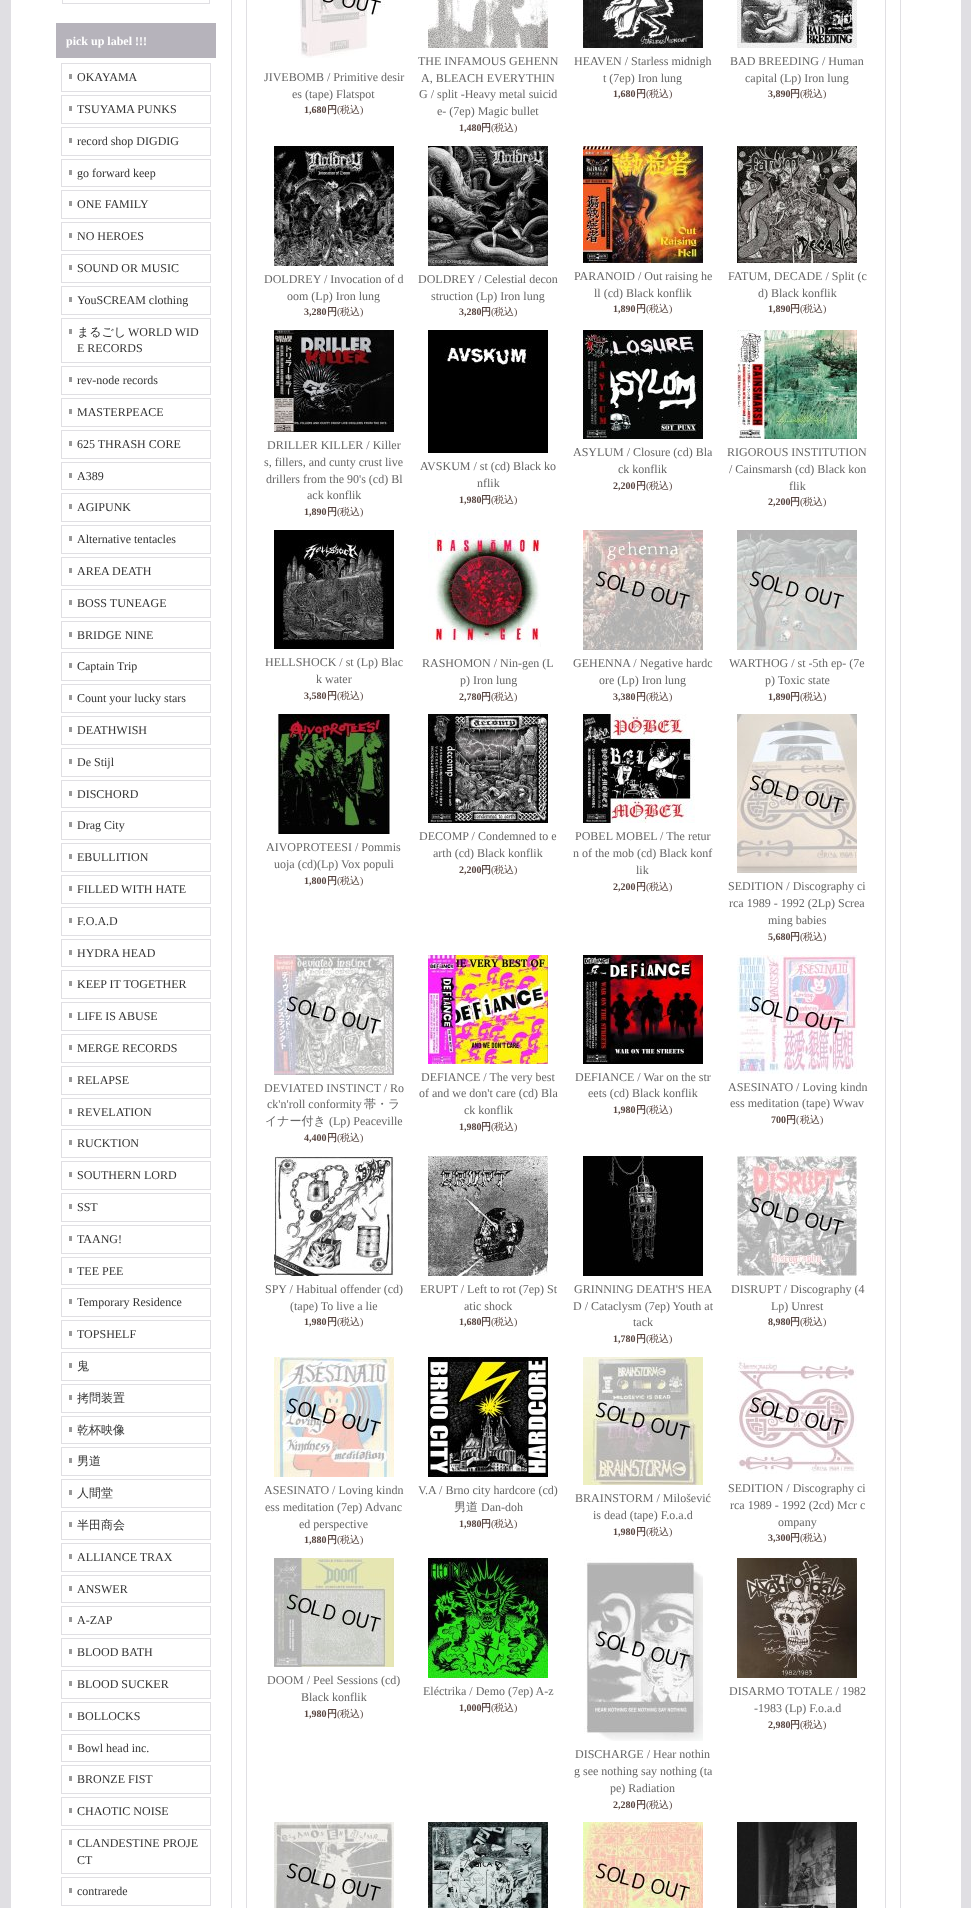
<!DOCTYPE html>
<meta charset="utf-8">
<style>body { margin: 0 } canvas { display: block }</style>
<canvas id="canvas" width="971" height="1908"></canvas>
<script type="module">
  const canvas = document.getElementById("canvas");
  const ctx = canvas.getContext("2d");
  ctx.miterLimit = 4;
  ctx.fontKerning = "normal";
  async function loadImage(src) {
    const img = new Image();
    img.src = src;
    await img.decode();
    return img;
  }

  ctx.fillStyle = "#e0dfe3";
  ctx.fillRect(0, 0, 971, 1908);
  ctx.fillStyle = "#ffffff";
  ctx.fillRect(11, 0, 950, 1908);
  ctx.strokeStyle = "#e0dfe3";
  ctx.strokeRect(62.5, -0.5, 147, 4);
  ctx.fillStyle = "#b6b3bb";
  ctx.fillRect(56, 23, 160, 35);
  ctx.font = "bold 12px Liberation Serif";
  ctx.fillStyle = "#ffffff";
  ctx.fillText("pick up label !!!", 66, 45);
  ctx.fillStyle = "#999999";
  ctx.fillRect(69, 74, 3, 5);
  ctx.strokeRect(61.5, 63.5, 149, 28);
  ctx.font = "12px Liberation Serif";
  ctx.fillStyle = "#333333";
  ctx.fillText("OKAYAMA", 77, 81);
  ctx.fillStyle = "#999999";
  ctx.fillRect(69, 106, 3, 5);
  ctx.strokeRect(61.5, 95.5, 149, 28);
  ctx.fillStyle = "#333333";
  ctx.fillText("TSUYAMA PUNKS", 77, 113);
  ctx.fillStyle = "#999999";
  ctx.fillRect(69, 138, 3, 5);
  ctx.strokeRect(61.5, 127.5, 149, 28);
  ctx.fillStyle = "#333333";
  ctx.fillText("record shop DIGDIG", 77, 145);
  ctx.fillStyle = "#999999";
  ctx.fillRect(69, 170, 3, 5);
  ctx.strokeRect(61.5, 159.5, 149, 27);
  ctx.fillStyle = "#333333";
  ctx.fillText("go forward keep", 77, 177);
  ctx.fillStyle = "#999999";
  ctx.fillRect(69, 201, 3, 5);
  ctx.strokeRect(61.5, 190.5, 149, 28);
  ctx.fillStyle = "#333333";
  ctx.fillText("ONE FAMILY", 77, 208);
  ctx.fillStyle = "#999999";
  ctx.fillRect(69, 233, 3, 5);
  ctx.strokeRect(61.5, 222.5, 149, 28);
  ctx.fillStyle = "#333333";
  ctx.fillText("NO HEROES", 77, 240);
  ctx.fillStyle = "#999999";
  ctx.fillRect(69, 265, 3, 5);
  ctx.strokeRect(61.5, 254.5, 149, 28);
  ctx.fillStyle = "#333333";
  ctx.fillText("SOUND OR MUSIC", 77, 272);
  ctx.fillStyle = "#999999";
  ctx.fillRect(69, 297, 3, 5);
  ctx.strokeRect(61.5, 286.5, 149, 28);
  ctx.fillStyle = "#333333";
  ctx.fillText("YouSCREAM clothing", 77, 304);
  ctx.fillStyle = "#999999";
  ctx.fillRect(69, 329, 3, 5);
  ctx.strokeRect(61.5, 318.5, 149, 44);
  ctx.font = "500 12px WenQuanYi Zen Hei";
  ctx.fillStyle = "#333333";
  ctx.fillText("まるごし", 77, 336);
  ctx.font = "12px Liberation Serif";
  ctx.fillText("WORLD WID", 128, 336);
  ctx.fillText("E RECORDS", 77, 352);
  ctx.fillStyle = "#999999";
  ctx.fillRect(69, 377, 3, 5);
  ctx.strokeRect(61.5, 366.5, 149, 28);
  ctx.fillStyle = "#333333";
  ctx.fillText("rev-node records", 77, 384);
  ctx.fillStyle = "#999999";
  ctx.fillRect(69, 409, 3, 5);
  ctx.strokeRect(61.5, 398.5, 149, 28);
  ctx.fillStyle = "#333333";
  ctx.fillText("MASTERPEACE", 77, 416);
  ctx.fillStyle = "#999999";
  ctx.fillRect(69, 441, 3, 5);
  ctx.strokeRect(61.5, 430.5, 149, 28);
  ctx.fillStyle = "#333333";
  ctx.fillText("625 THRASH CORE", 77, 448);
  ctx.fillStyle = "#999999";
  ctx.fillRect(69, 473, 3, 5);
  ctx.strokeRect(61.5, 462.5, 149, 27);
  ctx.fillStyle = "#333333";
  ctx.fillText("A389", 77, 480);
  ctx.fillStyle = "#999999";
  ctx.fillRect(69, 504, 3, 5);
  ctx.strokeRect(61.5, 493.5, 149, 28);
  ctx.fillStyle = "#333333";
  ctx.fillText("AGIPUNK", 77, 511);
  ctx.fillStyle = "#999999";
  ctx.fillRect(69, 536, 3, 5);
  ctx.strokeRect(61.5, 525.5, 149, 28);
  ctx.fillStyle = "#333333";
  ctx.fillText("Alternative tentacles", 77, 543);
  ctx.fillStyle = "#999999";
  ctx.fillRect(69, 568, 3, 5);
  ctx.strokeRect(61.5, 557.5, 149, 28);
  ctx.fillStyle = "#333333";
  ctx.fillText("AREA DEATH", 77, 575);
  ctx.fillStyle = "#999999";
  ctx.fillRect(69, 600, 3, 5);
  ctx.strokeRect(61.5, 589.5, 149, 28);
  ctx.fillStyle = "#333333";
  ctx.fillText("BOSS TUNEAGE", 77, 607);
  ctx.fillStyle = "#999999";
  ctx.fillRect(69, 632, 3, 5);
  ctx.strokeRect(61.5, 621.5, 149, 27);
  ctx.fillStyle = "#333333";
  ctx.fillText("BRIDGE NINE", 77, 639);
  ctx.fillStyle = "#999999";
  ctx.fillRect(69, 663, 3, 5);
  ctx.strokeRect(61.5, 652.5, 149, 28);
  ctx.fillStyle = "#333333";
  ctx.fillText("Captain Trip", 77, 670);
  ctx.fillStyle = "#999999";
  ctx.fillRect(69, 695, 3, 5);
  ctx.strokeRect(61.5, 684.5, 149, 28);
  ctx.fillStyle = "#333333";
  ctx.fillText("Count your lucky stars", 77, 702);
  ctx.fillStyle = "#999999";
  ctx.fillRect(69, 727, 3, 5);
  ctx.strokeRect(61.5, 716.5, 149, 28);
  ctx.fillStyle = "#333333";
  ctx.fillText("DEATHWISH", 77, 734);
  ctx.fillStyle = "#999999";
  ctx.fillRect(69, 759, 3, 5);
  ctx.strokeRect(61.5, 748.5, 149, 28);
  ctx.fillStyle = "#333333";
  ctx.fillText("De Stijl", 77, 766);
  ctx.fillStyle = "#999999";
  ctx.fillRect(69, 791, 3, 5);
  ctx.strokeRect(61.5, 780.5, 149, 27);
  ctx.fillStyle = "#333333";
  ctx.fillText("DISCHORD", 77, 798);
  ctx.fillStyle = "#999999";
  ctx.fillRect(69, 822, 3, 5);
  ctx.strokeRect(61.5, 811.5, 149, 28);
  ctx.fillStyle = "#333333";
  ctx.fillText("Drag City", 77, 829);
  ctx.fillStyle = "#999999";
  ctx.fillRect(69, 854, 3, 5);
  ctx.strokeRect(61.5, 843.5, 149, 28);
  ctx.fillStyle = "#333333";
  ctx.fillText("EBULLITION", 77, 861);
  ctx.fillStyle = "#999999";
  ctx.fillRect(69, 886, 3, 5);
  ctx.strokeRect(61.5, 875.5, 149, 28);
  ctx.fillStyle = "#333333";
  ctx.fillText("FILLED WITH HATE", 77, 893);
  ctx.fillStyle = "#999999";
  ctx.fillRect(69, 918, 3, 5);
  ctx.strokeRect(61.5, 907.5, 149, 28);
  ctx.fillStyle = "#333333";
  ctx.fillText("F.O.A.D", 77, 925);
  ctx.fillStyle = "#999999";
  ctx.fillRect(69, 950, 3, 5);
  ctx.strokeRect(61.5, 939.5, 149, 27);
  ctx.fillStyle = "#333333";
  ctx.fillText("HYDRA HEAD", 77, 957);
  ctx.fillStyle = "#999999";
  ctx.fillRect(69, 981, 3, 5);
  ctx.strokeRect(61.5, 970.5, 149, 28);
  ctx.fillStyle = "#333333";
  ctx.fillText("KEEP IT TOGETHER", 77, 988);
  ctx.fillStyle = "#999999";
  ctx.fillRect(69, 1013, 3, 5);
  ctx.strokeRect(61.5, 1002.5, 149, 28);
  ctx.fillStyle = "#333333";
  ctx.fillText("LIFE IS ABUSE", 77, 1020);
  ctx.fillStyle = "#999999";
  ctx.fillRect(69, 1045, 3, 5);
  ctx.strokeRect(61.5, 1034.5, 149, 28);
  ctx.fillStyle = "#333333";
  ctx.fillText("MERGE RECORDS", 77, 1052);
  ctx.fillStyle = "#999999";
  ctx.fillRect(69, 1077, 3, 5);
  ctx.strokeRect(61.5, 1066.5, 149, 28);
  ctx.fillStyle = "#333333";
  ctx.fillText("RELAPSE", 77, 1084);
  ctx.fillStyle = "#999999";
  ctx.fillRect(69, 1109, 3, 5);
  ctx.strokeRect(61.5, 1098.5, 149, 27);
  ctx.fillStyle = "#333333";
  ctx.fillText("REVELATION", 77, 1116);
  ctx.fillStyle = "#999999";
  ctx.fillRect(69, 1140, 3, 5);
  ctx.strokeRect(61.5, 1129.5, 149, 28);
  ctx.fillStyle = "#333333";
  ctx.fillText("RUCKTION", 77, 1147);
  ctx.fillStyle = "#999999";
  ctx.fillRect(69, 1172, 3, 5);
  ctx.strokeRect(61.5, 1161.5, 149, 28);
  ctx.fillStyle = "#333333";
  ctx.fillText("SOUTHERN LORD", 77, 1179);
  ctx.fillStyle = "#999999";
  ctx.fillRect(69, 1204, 3, 5);
  ctx.strokeRect(61.5, 1193.5, 149, 28);
  ctx.fillStyle = "#333333";
  ctx.fillText("SST", 77, 1211);
  ctx.fillStyle = "#999999";
  ctx.fillRect(69, 1236, 3, 5);
  ctx.strokeRect(61.5, 1225.5, 149, 28);
  ctx.fillStyle = "#333333";
  ctx.fillText("TAANG!", 77, 1243);
  ctx.fillStyle = "#999999";
  ctx.fillRect(69, 1268, 3, 5);
  ctx.strokeRect(61.5, 1257.5, 149, 27);
  ctx.fillStyle = "#333333";
  ctx.fillText("TEE PEE", 77, 1275);
  ctx.fillStyle = "#999999";
  ctx.fillRect(69, 1299, 3, 5);
  ctx.strokeRect(61.5, 1288.5, 149, 28);
  ctx.fillStyle = "#333333";
  ctx.fillText("Temporary Residence", 77, 1306);
  ctx.fillStyle = "#999999";
  ctx.fillRect(69, 1331, 3, 5);
  ctx.strokeRect(61.5, 1320.5, 149, 28);
  ctx.fillStyle = "#333333";
  ctx.fillText("TOPSHELF", 77, 1338);
  ctx.fillStyle = "#999999";
  ctx.fillRect(69, 1363, 3, 5);
  ctx.strokeRect(61.5, 1352.5, 149, 28);
  ctx.font = "500 12px WenQuanYi Zen Hei";
  ctx.fillStyle = "#333333";
  ctx.fillText("鬼", 77, 1370);
  ctx.fillStyle = "#999999";
  ctx.fillRect(69, 1395, 3, 5);
  ctx.strokeRect(61.5, 1384.5, 149, 28);
  ctx.fillStyle = "#333333";
  ctx.fillText("拷問装置", 77, 1402);
  ctx.fillStyle = "#999999";
  ctx.fillRect(69, 1427, 3, 5);
  ctx.strokeRect(61.5, 1416.5, 149, 27);
  ctx.fillStyle = "#333333";
  ctx.fillText("乾杯映像", 77, 1434);
  ctx.fillStyle = "#999999";
  ctx.fillRect(69, 1458, 3, 5);
  ctx.strokeRect(61.5, 1447.5, 149, 28);
  ctx.fillStyle = "#333333";
  ctx.fillText("男道", 77, 1465);
  ctx.fillStyle = "#999999";
  ctx.fillRect(69, 1490, 3, 5);
  ctx.strokeRect(61.5, 1479.5, 149, 28);
  ctx.fillStyle = "#333333";
  ctx.fillText("人間堂", 77, 1497);
  ctx.fillStyle = "#999999";
  ctx.fillRect(69, 1522, 3, 5);
  ctx.strokeRect(61.5, 1511.5, 149, 28);
  ctx.fillStyle = "#333333";
  ctx.fillText("半田商会", 77, 1529);
  ctx.fillStyle = "#999999";
  ctx.fillRect(69, 1554, 3, 5);
  ctx.strokeRect(61.5, 1543.5, 149, 28);
  ctx.font = "12px Liberation Serif";
  ctx.fillStyle = "#333333";
  ctx.fillText("ALLIANCE TRAX", 77, 1561);
  ctx.fillStyle = "#999999";
  ctx.fillRect(69, 1586, 3, 5);
  ctx.strokeRect(61.5, 1575.5, 149, 27);
  ctx.fillStyle = "#333333";
  ctx.fillText("ANSWER", 77, 1593);
  ctx.fillStyle = "#999999";
  ctx.fillRect(69, 1617, 3, 5);
  ctx.strokeRect(61.5, 1606.5, 149, 28);
  ctx.fillStyle = "#333333";
  ctx.fillText("A-ZAP", 77, 1624);
  ctx.fillStyle = "#999999";
  ctx.fillRect(69, 1649, 3, 5);
  ctx.strokeRect(61.5, 1638.5, 149, 28);
  ctx.fillStyle = "#333333";
  ctx.fillText("BLOOD BATH", 77, 1656);
  ctx.fillStyle = "#999999";
  ctx.fillRect(69, 1681, 3, 5);
  ctx.strokeRect(61.5, 1670.5, 149, 28);
  ctx.fillStyle = "#333333";
  ctx.fillText("BLOOD SUCKER", 77, 1688);
  ctx.fillStyle = "#999999";
  ctx.fillRect(69, 1713, 3, 5);
  ctx.strokeRect(61.5, 1702.5, 149, 28);
  ctx.fillStyle = "#333333";
  ctx.fillText("BOLLOCKS", 77, 1720);
  ctx.fillStyle = "#999999";
  ctx.fillRect(69, 1745, 3, 5);
  ctx.strokeRect(61.5, 1734.5, 149, 27);
  ctx.fillStyle = "#333333";
  ctx.fillText("Bowl head inc.", 77, 1752);
  ctx.fillStyle = "#999999";
  ctx.fillRect(69, 1776, 3, 5);
  ctx.strokeRect(61.5, 1765.5, 149, 28);
  ctx.fillStyle = "#333333";
  ctx.fillText("BRONZE FIST", 77, 1783);
  ctx.fillStyle = "#999999";
  ctx.fillRect(69, 1808, 3, 5);
  ctx.strokeRect(61.5, 1797.5, 149, 28);
  ctx.fillStyle = "#333333";
  ctx.fillText("CHAOTIC NOISE", 77, 1815);
  ctx.fillStyle = "#999999";
  ctx.fillRect(69, 1840, 3, 5);
  ctx.strokeRect(61.5, 1829.5, 149, 44);
  ctx.fillStyle = "#333333";
  ctx.fillText("CLANDESTINE PROJE", 77, 1847);
  ctx.fillText("CT", 77, 1864);
  ctx.fillStyle = "#999999";
  ctx.fillRect(69, 1888, 3, 5);
  ctx.strokeRect(61.5, 1877.5, 149, 28);
  ctx.fillStyle = "#333333";
  ctx.fillText("contrarede", 77, 1895);
  ctx.fillStyle = "#e0dfe3";
  ctx.fillRect(900, 0, 1, 1908);
  ctx.fillRect(231, 0, 1, 1908);
  ctx.strokeRect(246.5, -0.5, 639, 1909);
  ctx.drawImage(await loadImage("img1.png"), 298, 0, 87, 58);
  ctx.fillStyle = "#666666";
  ctx.fillText("JIVEBOMB / Primitive desir", 264, 81);
  ctx.fillText("es (tape) Flatspot", 292, 98);
  ctx.font = "bold 10px Liberation Serif";
  ctx.fillStyle = "#584641";
  ctx.fillText("1,680", 304, 113);
  ctx.font = "bold 10px WenQuanYi Zen Hei";
  ctx.fillText("円", 327, 113);
  ctx.font = "10px Liberation Serif";
  ctx.fillText("(", 337, 113);
  ctx.font = "500 10px WenQuanYi Zen Hei";
  ctx.fillText("税込", 340, 113);
  ctx.font = "10px Liberation Serif";
  ctx.fillText(")", 360, 113);
  ctx.drawImage(await loadImage("img2.png"), 428, 0, 120, 48);
  ctx.font = "12px Liberation Serif";
  ctx.fillStyle = "#666666";
  ctx.fillText("THE INFAMOUS GEHENN", 418, 65);
  ctx.fillText("A, BLEACH EVERYTHIN", 421, 82);
  ctx.fillText("G / split -Heavy metal suicid", 419, 98);
  ctx.fillText("e- (7ep) Magic bullet", 437, 115);
  ctx.font = "bold 10px Liberation Serif";
  ctx.fillStyle = "#584641";
  ctx.fillText("1,480", 459, 131);
  ctx.font = "bold 10px WenQuanYi Zen Hei";
  ctx.fillText("円", 481, 131);
  ctx.font = "10px Liberation Serif";
  ctx.fillText("(", 491, 131);
  ctx.font = "500 10px WenQuanYi Zen Hei";
  ctx.fillText("税込", 494, 131);
  ctx.font = "10px Liberation Serif";
  ctx.fillText(")", 514, 131);
  ctx.drawImage(await loadImage("img3.png"), 583, 0, 120, 48);
  ctx.font = "12px Liberation Serif";
  ctx.fillStyle = "#666666";
  ctx.fillText("HEAVEN / Starless midnigh", 574, 65);
  ctx.fillText("t (7ep) Iron lung", 603, 82);
  ctx.font = "bold 10px Liberation Serif";
  ctx.fillStyle = "#584641";
  ctx.fillText("1,680", 613, 97);
  ctx.font = "bold 10px WenQuanYi Zen Hei";
  ctx.fillText("円", 636, 97);
  ctx.font = "10px Liberation Serif";
  ctx.fillText("(", 646, 97);
  ctx.font = "500 10px WenQuanYi Zen Hei";
  ctx.fillText("税込", 649, 97);
  ctx.font = "10px Liberation Serif";
  ctx.fillText(")", 669, 97);
  ctx.drawImage(await loadImage("img4.png"), 737, 0, 120, 48);
  ctx.font = "12px Liberation Serif";
  ctx.fillStyle = "#666666";
  ctx.fillText("BAD BREEDING / Human", 730, 65);
  ctx.fillText("capital (Lp) Iron lung", 745, 82);
  ctx.font = "bold 10px Liberation Serif";
  ctx.fillStyle = "#584641";
  ctx.fillText("3,890", 768, 97);
  ctx.font = "bold 10px WenQuanYi Zen Hei";
  ctx.fillText("円", 790, 97);
  ctx.font = "10px Liberation Serif";
  ctx.fillText("(", 800, 97);
  ctx.font = "500 10px WenQuanYi Zen Hei";
  ctx.fillText("税込", 803, 97);
  ctx.font = "10px Liberation Serif";
  ctx.fillText(")", 823, 97);
  ctx.drawImage(await loadImage("img5.png"), 274, 146, 120, 120);
  ctx.font = "12px Liberation Serif";
  ctx.fillStyle = "#666666";
  ctx.fillText("DOLDREY / Invocation of d", 264, 283);
  ctx.fillText("oom (Lp) Iron lung", 287, 300);
  ctx.font = "bold 10px Liberation Serif";
  ctx.fillStyle = "#584641";
  ctx.fillText("3,280", 304, 315);
  ctx.font = "bold 10px WenQuanYi Zen Hei";
  ctx.fillText("円", 327, 315);
  ctx.font = "10px Liberation Serif";
  ctx.fillText("(", 337, 315);
  ctx.font = "500 10px WenQuanYi Zen Hei";
  ctx.fillText("税込", 340, 315);
  ctx.font = "10px Liberation Serif";
  ctx.fillText(")", 360, 315);
  ctx.drawImage(await loadImage("img6.png"), 428, 146, 120, 120);
  ctx.font = "12px Liberation Serif";
  ctx.fillStyle = "#666666";
  ctx.fillText("DOLDREY / Celestial decon", 418, 283);
  ctx.fillText("struction (Lp) Iron lung", 431, 300);
  ctx.font = "bold 10px Liberation Serif";
  ctx.fillStyle = "#584641";
  ctx.fillText("3,280", 459, 315);
  ctx.font = "bold 10px WenQuanYi Zen Hei";
  ctx.fillText("円", 481, 315);
  ctx.font = "10px Liberation Serif";
  ctx.fillText("(", 491, 315);
  ctx.font = "500 10px WenQuanYi Zen Hei";
  ctx.fillText("税込", 494, 315);
  ctx.font = "10px Liberation Serif";
  ctx.fillText(")", 514, 315);
  ctx.drawImage(await loadImage("img7.png"), 583, 146, 120, 117);
  ctx.font = "12px Liberation Serif";
  ctx.fillStyle = "#666666";
  ctx.fillText("PARANOID / Out raising he", 574, 280);
  ctx.fillText("ll (cd) Black konflik", 594, 297);
  ctx.font = "bold 10px Liberation Serif";
  ctx.fillStyle = "#584641";
  ctx.fillText("1,890", 613, 312);
  ctx.font = "bold 10px WenQuanYi Zen Hei";
  ctx.fillText("円", 636, 312);
  ctx.font = "10px Liberation Serif";
  ctx.fillText("(", 646, 312);
  ctx.font = "500 10px WenQuanYi Zen Hei";
  ctx.fillText("税込", 649, 312);
  ctx.font = "10px Liberation Serif";
  ctx.fillText(")", 669, 312);
  ctx.drawImage(await loadImage("img8.png"), 737, 146, 120, 117);
  ctx.font = "12px Liberation Serif";
  ctx.fillStyle = "#666666";
  ctx.fillText("FATUM, DECADE / Split (c", 728, 280);
  ctx.fillText("d) Black konflik", 758, 297);
  ctx.font = "bold 10px Liberation Serif";
  ctx.fillStyle = "#584641";
  ctx.fillText("1,890", 768, 312);
  ctx.font = "bold 10px WenQuanYi Zen Hei";
  ctx.fillText("円", 790, 312);
  ctx.font = "10px Liberation Serif";
  ctx.fillText("(", 800, 312);
  ctx.font = "500 10px WenQuanYi Zen Hei";
  ctx.fillText("税込", 803, 312);
  ctx.font = "10px Liberation Serif";
  ctx.fillText(")", 823, 312);
  ctx.drawImage(await loadImage("img9.png"), 274, 330, 120, 102);
  ctx.font = "12px Liberation Serif";
  ctx.fillStyle = "#666666";
  ctx.fillText("DRILLER KILLER / Killer", 267, 449);
  ctx.fillText("s, fillers, and cunty crust live", 264, 466);
  ctx.fillText("drillers from the 90's (cd) Bl", 266, 483);
  ctx.fillText("ack konflik", 307, 499);
  ctx.font = "bold 10px Liberation Serif";
  ctx.fillStyle = "#584641";
  ctx.fillText("1,890", 304, 515);
  ctx.font = "bold 10px WenQuanYi Zen Hei";
  ctx.fillText("円", 327, 515);
  ctx.font = "10px Liberation Serif";
  ctx.fillText("(", 337, 515);
  ctx.font = "500 10px WenQuanYi Zen Hei";
  ctx.fillText("税込", 340, 515);
  ctx.font = "10px Liberation Serif";
  ctx.fillText(")", 360, 515);
  ctx.drawImage(await loadImage("img10.png"), 428, 330, 120, 123);
  ctx.font = "12px Liberation Serif";
  ctx.fillStyle = "#666666";
  ctx.fillText("AVSKUM / st (cd) Black ko", 420, 470);
  ctx.fillText("nflik", 477, 487);
  ctx.font = "bold 10px Liberation Serif";
  ctx.fillStyle = "#584641";
  ctx.fillText("1,980", 459, 503);
  ctx.font = "bold 10px WenQuanYi Zen Hei";
  ctx.fillText("円", 481, 503);
  ctx.font = "10px Liberation Serif";
  ctx.fillText("(", 491, 503);
  ctx.font = "500 10px WenQuanYi Zen Hei";
  ctx.fillText("税込", 494, 503);
  ctx.font = "10px Liberation Serif";
  ctx.fillText(")", 514, 503);
  ctx.drawImage(await loadImage("img11.png"), 583, 330, 120, 109);
  ctx.font = "12px Liberation Serif";
  ctx.fillStyle = "#666666";
  ctx.fillText("ASYLUM / Closure (cd) Bla", 573, 456);
  ctx.fillText("ck konflik", 618, 473);
  ctx.font = "bold 10px Liberation Serif";
  ctx.fillStyle = "#584641";
  ctx.fillText("2,200", 613, 489);
  ctx.font = "bold 10px WenQuanYi Zen Hei";
  ctx.fillText("円", 636, 489);
  ctx.font = "10px Liberation Serif";
  ctx.fillText("(", 646, 489);
  ctx.font = "500 10px WenQuanYi Zen Hei";
  ctx.fillText("税込", 649, 489);
  ctx.font = "10px Liberation Serif";
  ctx.fillText(")", 669, 489);
  ctx.drawImage(await loadImage("img12.png"), 737, 330, 120, 109);
  ctx.font = "12px Liberation Serif";
  ctx.fillStyle = "#666666";
  ctx.fillText("RIGOROUS INSTITUTION", 727, 456);
  ctx.fillText("/ Cainsmarsh (cd) Black kon", 729, 473);
  ctx.fillText("flik", 789, 490);
  ctx.font = "bold 10px Liberation Serif";
  ctx.fillStyle = "#584641";
  ctx.fillText("2,200", 768, 505);
  ctx.font = "bold 10px WenQuanYi Zen Hei";
  ctx.fillText("円", 790, 505);
  ctx.font = "10px Liberation Serif";
  ctx.fillText("(", 800, 505);
  ctx.font = "500 10px WenQuanYi Zen Hei";
  ctx.fillText("税込", 803, 505);
  ctx.font = "10px Liberation Serif";
  ctx.fillText(")", 823, 505);
  ctx.drawImage(await loadImage("img13.png"), 274, 530, 120, 119);
  ctx.font = "12px Liberation Serif";
  ctx.fillStyle = "#666666";
  ctx.fillText("HELLSHOCK / st (Lp) Blac", 265, 666);
  ctx.fillText("k water", 316, 683);
  ctx.font = "bold 10px Liberation Serif";
  ctx.fillStyle = "#584641";
  ctx.fillText("3,580", 304, 699);
  ctx.font = "bold 10px WenQuanYi Zen Hei";
  ctx.fillText("円", 327, 699);
  ctx.font = "10px Liberation Serif";
  ctx.fillText("(", 337, 699);
  ctx.font = "500 10px WenQuanYi Zen Hei";
  ctx.fillText("税込", 340, 699);
  ctx.font = "10px Liberation Serif";
  ctx.fillText(")", 360, 699);
  ctx.drawImage(await loadImage("img14.png"), 428, 530, 113, 117);
  ctx.font = "12px Liberation Serif";
  ctx.fillStyle = "#666666";
  ctx.fillText("RASHOMON / Nin-gen (L", 422, 667);
  ctx.fillText("p) Iron lung", 460, 684);
  ctx.font = "bold 10px Liberation Serif";
  ctx.fillStyle = "#584641";
  ctx.fillText("2,780", 459, 700);
  ctx.font = "bold 10px WenQuanYi Zen Hei";
  ctx.fillText("円", 481, 700);
  ctx.font = "10px Liberation Serif";
  ctx.fillText("(", 491, 700);
  ctx.font = "500 10px WenQuanYi Zen Hei";
  ctx.fillText("税込", 494, 700);
  ctx.font = "10px Liberation Serif";
  ctx.fillText(")", 514, 700);
  ctx.drawImage(await loadImage("img15.png"), 583, 530, 120, 120);
  ctx.font = "12px Liberation Serif";
  ctx.fillStyle = "#666666";
  ctx.fillText("GEHENNA / Negative hardc", 573, 667);
  ctx.fillText("ore (Lp) Iron lung", 599, 684);
  ctx.font = "bold 10px Liberation Serif";
  ctx.fillStyle = "#584641";
  ctx.fillText("3,380", 613, 700);
  ctx.font = "bold 10px WenQuanYi Zen Hei";
  ctx.fillText("円", 636, 700);
  ctx.font = "10px Liberation Serif";
  ctx.fillText("(", 646, 700);
  ctx.font = "500 10px WenQuanYi Zen Hei";
  ctx.fillText("税込", 649, 700);
  ctx.font = "10px Liberation Serif";
  ctx.fillText(")", 669, 700);
  ctx.drawImage(await loadImage("img16.png"), 737, 530, 120, 120);
  ctx.font = "12px Liberation Serif";
  ctx.fillStyle = "#666666";
  ctx.fillText("WARTHOG / st -5th ep- (7e", 729, 667);
  ctx.fillText("p) Toxic state", 765, 684);
  ctx.font = "bold 10px Liberation Serif";
  ctx.fillStyle = "#584641";
  ctx.fillText("1,890", 768, 700);
  ctx.font = "bold 10px WenQuanYi Zen Hei";
  ctx.fillText("円", 790, 700);
  ctx.font = "10px Liberation Serif";
  ctx.fillText("(", 800, 700);
  ctx.font = "500 10px WenQuanYi Zen Hei";
  ctx.fillText("税込", 803, 700);
  ctx.font = "10px Liberation Serif";
  ctx.fillText(")", 823, 700);
  ctx.drawImage(await loadImage("img17.png"), 274, 714, 116, 120);
  ctx.font = "12px Liberation Serif";
  ctx.fillStyle = "#666666";
  ctx.fillText("AIVOPROTEESI / Pommis", 266, 851);
  ctx.fillText("uoja (cd)(Lp) Vox populi", 274, 868);
  ctx.font = "bold 10px Liberation Serif";
  ctx.fillStyle = "#584641";
  ctx.fillText("1,800", 304, 884);
  ctx.font = "bold 10px WenQuanYi Zen Hei";
  ctx.fillText("円", 327, 884);
  ctx.font = "10px Liberation Serif";
  ctx.fillText("(", 337, 884);
  ctx.font = "500 10px WenQuanYi Zen Hei";
  ctx.fillText("税込", 340, 884);
  ctx.font = "10px Liberation Serif";
  ctx.fillText(")", 360, 884);
  ctx.drawImage(await loadImage("img18.png"), 428, 714, 120, 109);
  ctx.font = "12px Liberation Serif";
  ctx.fillStyle = "#666666";
  ctx.fillText("DECOMP / Condemned to e", 419, 840);
  ctx.fillText("arth (cd) Black konflik", 433, 857);
  ctx.font = "bold 10px Liberation Serif";
  ctx.fillStyle = "#584641";
  ctx.fillText("2,200", 459, 873);
  ctx.font = "bold 10px WenQuanYi Zen Hei";
  ctx.fillText("円", 481, 873);
  ctx.font = "10px Liberation Serif";
  ctx.fillText("(", 491, 873);
  ctx.font = "500 10px WenQuanYi Zen Hei";
  ctx.fillText("税込", 494, 873);
  ctx.font = "10px Liberation Serif";
  ctx.fillText(")", 514, 873);
  ctx.drawImage(await loadImage("img19.png"), 583, 714, 112, 109);
  ctx.font = "12px Liberation Serif";
  ctx.fillStyle = "#666666";
  ctx.fillText("POBEL MOBEL / The retur", 575, 840);
  ctx.fillText("n of the mob (cd) Black konf", 573, 857);
  ctx.fillText("lik", 636, 874);
  ctx.font = "bold 10px Liberation Serif";
  ctx.fillStyle = "#584641";
  ctx.fillText("2,200", 613, 890);
  ctx.font = "bold 10px WenQuanYi Zen Hei";
  ctx.fillText("円", 636, 890);
  ctx.font = "10px Liberation Serif";
  ctx.fillText("(", 646, 890);
  ctx.font = "500 10px WenQuanYi Zen Hei";
  ctx.fillText("税込", 649, 890);
  ctx.font = "10px Liberation Serif";
  ctx.fillText(")", 669, 890);
  ctx.drawImage(await loadImage("img20.png"), 737, 714, 120, 159);
  ctx.font = "12px Liberation Serif";
  ctx.fillStyle = "#666666";
  ctx.fillText("SEDITION / Discography ci", 728, 890);
  ctx.fillText("rca 1989 - 1992 (2Lp) Screa", 729, 907);
  ctx.fillText("ming babies", 768, 924);
  ctx.font = "bold 10px Liberation Serif";
  ctx.fillStyle = "#584641";
  ctx.fillText("5,680", 768, 940);
  ctx.font = "bold 10px WenQuanYi Zen Hei";
  ctx.fillText("円", 790, 940);
  ctx.font = "10px Liberation Serif";
  ctx.fillText("(", 800, 940);
  ctx.font = "500 10px WenQuanYi Zen Hei";
  ctx.fillText("税込", 803, 940);
  ctx.font = "10px Liberation Serif";
  ctx.fillText(")", 823, 940);
  ctx.drawImage(await loadImage("img21.png"), 274, 955, 120, 120);
  ctx.font = "12px Liberation Serif";
  ctx.fillStyle = "#666666";
  ctx.fillText("DEVIATED INSTINCT / Ro", 264, 1092);
  ctx.fillText("ck'n'roll conformity", 267, 1108);
  ctx.font = "500 12px WenQuanYi Zen Hei";
  ctx.fillText("帯・ラ", 364, 1108);
  ctx.fillText("イナー付き", 265, 1125);
  ctx.font = "12px Liberation Serif";
  ctx.fillText("(Lp) Peaceville", 329, 1125);
  ctx.font = "bold 10px Liberation Serif";
  ctx.fillStyle = "#584641";
  ctx.fillText("4,400", 304, 1141);
  ctx.font = "bold 10px WenQuanYi Zen Hei";
  ctx.fillText("円", 327, 1141);
  ctx.font = "10px Liberation Serif";
  ctx.fillText("(", 337, 1141);
  ctx.font = "500 10px WenQuanYi Zen Hei";
  ctx.fillText("税込", 340, 1141);
  ctx.font = "10px Liberation Serif";
  ctx.fillText(")", 360, 1141);
  ctx.drawImage(await loadImage("img22.png"), 428, 955, 120, 109);
  ctx.font = "12px Liberation Serif";
  ctx.fillStyle = "#666666";
  ctx.fillText("DEFIANCE / The very best", 421, 1081);
  ctx.fillText("of and we don't care (cd) Bla", 419, 1097);
  ctx.fillText("ck konflik", 464, 1114);
  ctx.font = "bold 10px Liberation Serif";
  ctx.fillStyle = "#584641";
  ctx.fillText("1,980", 459, 1130);
  ctx.font = "bold 10px WenQuanYi Zen Hei";
  ctx.fillText("円", 481, 1130);
  ctx.font = "10px Liberation Serif";
  ctx.fillText("(", 491, 1130);
  ctx.font = "500 10px WenQuanYi Zen Hei";
  ctx.fillText("税込", 494, 1130);
  ctx.font = "10px Liberation Serif";
  ctx.fillText(")", 514, 1130);
  ctx.drawImage(await loadImage("img23.png"), 583, 955, 120, 109);
  ctx.font = "12px Liberation Serif";
  ctx.fillStyle = "#666666";
  ctx.fillText("DEFIANCE / War on the str", 575, 1081);
  ctx.fillText("eets (cd) Black konflik", 588, 1097);
  ctx.font = "bold 10px Liberation Serif";
  ctx.fillStyle = "#584641";
  ctx.fillText("1,980", 613, 1113);
  ctx.font = "bold 10px WenQuanYi Zen Hei";
  ctx.fillText("円", 636, 1113);
  ctx.font = "10px Liberation Serif";
  ctx.fillText("(", 646, 1113);
  ctx.font = "500 10px WenQuanYi Zen Hei";
  ctx.fillText("税込", 649, 1113);
  ctx.font = "10px Liberation Serif";
  ctx.fillText(")", 669, 1113);
  ctx.drawImage(await loadImage("img24.png"), 737, 955, 120, 119);
  ctx.font = "12px Liberation Serif";
  ctx.fillStyle = "#666666";
  ctx.fillText("ASESINATO / Loving kindn", 728, 1091);
  ctx.fillText("ess meditation (tape) Wwav", 730, 1107);
  ctx.font = "bold 10px Liberation Serif";
  ctx.fillStyle = "#584641";
  ctx.fillText("700", 771, 1123);
  ctx.font = "bold 10px WenQuanYi Zen Hei";
  ctx.fillText("円", 786, 1123);
  ctx.font = "10px Liberation Serif";
  ctx.fillText("(", 796, 1123);
  ctx.font = "500 10px WenQuanYi Zen Hei";
  ctx.fillText("税込", 800, 1123);
  ctx.font = "10px Liberation Serif";
  ctx.fillText(")", 820, 1123);
  ctx.drawImage(await loadImage("img25.png"), 274, 1156, 120, 120);
  ctx.font = "12px Liberation Serif";
  ctx.fillStyle = "#666666";
  ctx.fillText("SPY / Habitual offender (cd)", 265, 1293);
  ctx.fillText("(tape) To live a lie", 290, 1310);
  ctx.font = "bold 10px Liberation Serif";
  ctx.fillStyle = "#584641";
  ctx.fillText("1,980", 304, 1325);
  ctx.font = "bold 10px WenQuanYi Zen Hei";
  ctx.fillText("円", 327, 1325);
  ctx.font = "10px Liberation Serif";
  ctx.fillText("(", 337, 1325);
  ctx.font = "500 10px WenQuanYi Zen Hei";
  ctx.fillText("税込", 340, 1325);
  ctx.font = "10px Liberation Serif";
  ctx.fillText(")", 360, 1325);
  ctx.drawImage(await loadImage("img26.png"), 428, 1156, 120, 120);
  ctx.font = "12px Liberation Serif";
  ctx.fillStyle = "#666666";
  ctx.fillText("ERUPT / Left to rot (7ep) St", 420, 1293);
  ctx.fillText("atic shock", 464, 1310);
  ctx.font = "bold 10px Liberation Serif";
  ctx.fillStyle = "#584641";
  ctx.fillText("1,680", 459, 1325);
  ctx.font = "bold 10px WenQuanYi Zen Hei";
  ctx.fillText("円", 481, 1325);
  ctx.font = "10px Liberation Serif";
  ctx.fillText("(", 491, 1325);
  ctx.font = "500 10px WenQuanYi Zen Hei";
  ctx.fillText("税込", 494, 1325);
  ctx.font = "10px Liberation Serif";
  ctx.fillText(")", 514, 1325);
  ctx.drawImage(await loadImage("img27.png"), 583, 1156, 120, 120);
  ctx.font = "12px Liberation Serif";
  ctx.fillStyle = "#666666";
  ctx.fillText("GRINNING DEATH'S HEA", 574, 1293);
  ctx.fillText("D / Cataclysm (7ep) Youth at", 573, 1310);
  ctx.fillText("tack", 633, 1326);
  ctx.font = "bold 10px Liberation Serif";
  ctx.fillStyle = "#584641";
  ctx.fillText("1,780", 613, 1342);
  ctx.font = "bold 10px WenQuanYi Zen Hei";
  ctx.fillText("円", 636, 1342);
  ctx.font = "10px Liberation Serif";
  ctx.fillText("(", 646, 1342);
  ctx.font = "500 10px WenQuanYi Zen Hei";
  ctx.fillText("税込", 649, 1342);
  ctx.font = "10px Liberation Serif";
  ctx.fillText(")", 669, 1342);
  ctx.drawImage(await loadImage("img28.png"), 737, 1156, 120, 120);
  ctx.font = "12px Liberation Serif";
  ctx.fillStyle = "#666666";
  ctx.fillText("DISRUPT / Discography (4", 731, 1293);
  ctx.fillText("Lp) Unrest", 771, 1310);
  ctx.font = "bold 10px Liberation Serif";
  ctx.fillStyle = "#584641";
  ctx.fillText("8,980", 768, 1325);
  ctx.font = "bold 10px WenQuanYi Zen Hei";
  ctx.fillText("円", 790, 1325);
  ctx.font = "10px Liberation Serif";
  ctx.fillText("(", 800, 1325);
  ctx.font = "500 10px WenQuanYi Zen Hei";
  ctx.fillText("税込", 803, 1325);
  ctx.font = "10px Liberation Serif";
  ctx.fillText(")", 823, 1325);
  ctx.drawImage(await loadImage("img29.png"), 274, 1357, 120, 120);
  ctx.font = "12px Liberation Serif";
  ctx.fillStyle = "#666666";
  ctx.fillText("ASESINATO / Loving kindn", 264, 1494);
  ctx.fillText("ess meditation (7ep) Advanc", 265, 1511);
  ctx.fillText("ed perspective", 299, 1528);
  ctx.font = "bold 10px Liberation Serif";
  ctx.fillStyle = "#584641";
  ctx.fillText("1,880", 304, 1543);
  ctx.font = "bold 10px WenQuanYi Zen Hei";
  ctx.fillText("円", 327, 1543);
  ctx.font = "10px Liberation Serif";
  ctx.fillText("(", 337, 1543);
  ctx.font = "500 10px WenQuanYi Zen Hei";
  ctx.fillText("税込", 340, 1543);
  ctx.font = "10px Liberation Serif";
  ctx.fillText(")", 360, 1543);
  ctx.drawImage(await loadImage("img30.png"), 428, 1357, 120, 120);
  ctx.font = "12px Liberation Serif";
  ctx.fillStyle = "#666666";
  ctx.fillText("V.A / Brno city hardcore (cd)", 418, 1494);
  ctx.font = "500 12px WenQuanYi Zen Hei";
  ctx.fillText("男道", 454, 1511);
  ctx.font = "12px Liberation Serif";
  ctx.fillText("Dan-doh", 481, 1511);
  ctx.font = "bold 10px Liberation Serif";
  ctx.fillStyle = "#584641";
  ctx.fillText("1,980", 459, 1527);
  ctx.font = "bold 10px WenQuanYi Zen Hei";
  ctx.fillText("円", 481, 1527);
  ctx.font = "10px Liberation Serif";
  ctx.fillText("(", 491, 1527);
  ctx.font = "500 10px WenQuanYi Zen Hei";
  ctx.fillText("税込", 494, 1527);
  ctx.font = "10px Liberation Serif";
  ctx.fillText(")", 514, 1527);
  ctx.drawImage(await loadImage("img31.png"), 583, 1357, 120, 128);
  ctx.font = "12px Liberation Serif";
  ctx.fillStyle = "#666666";
  ctx.fillText("BRAINSTORM / Milošević", 575, 1502);
  ctx.fillText("is dead (tape) F.o.a.d", 593, 1519);
  ctx.font = "bold 10px Liberation Serif";
  ctx.fillStyle = "#584641";
  ctx.fillText("1,980", 613, 1535);
  ctx.font = "bold 10px WenQuanYi Zen Hei";
  ctx.fillText("円", 636, 1535);
  ctx.font = "10px Liberation Serif";
  ctx.fillText("(", 646, 1535);
  ctx.font = "500 10px WenQuanYi Zen Hei";
  ctx.fillText("税込", 649, 1535);
  ctx.font = "10px Liberation Serif";
  ctx.fillText(")", 669, 1535);
  ctx.drawImage(await loadImage("img32.png"), 737, 1357, 120, 117);
  ctx.font = "12px Liberation Serif";
  ctx.fillStyle = "#666666";
  ctx.fillText("SEDITION / Discography ci", 728, 1492);
  ctx.fillText("rca 1989 - 1992 (2cd) Mcr c", 730, 1509);
  ctx.fillText("ompany", 778, 1526);
  ctx.font = "bold 10px Liberation Serif";
  ctx.fillStyle = "#584641";
  ctx.fillText("3,300", 768, 1541);
  ctx.font = "bold 10px WenQuanYi Zen Hei";
  ctx.fillText("円", 790, 1541);
  ctx.font = "10px Liberation Serif";
  ctx.fillText("(", 800, 1541);
  ctx.font = "500 10px WenQuanYi Zen Hei";
  ctx.fillText("税込", 803, 1541);
  ctx.font = "10px Liberation Serif";
  ctx.fillText(")", 823, 1541);
  ctx.drawImage(await loadImage("img33.png"), 274, 1558, 120, 109);
  ctx.font = "12px Liberation Serif";
  ctx.fillStyle = "#666666";
  ctx.fillText("DOOM / Peel Sessions (cd)", 267, 1684);
  ctx.fillText("Black konflik", 301, 1701);
  ctx.font = "bold 10px Liberation Serif";
  ctx.fillStyle = "#584641";
  ctx.fillText("1,980", 304, 1717);
  ctx.font = "bold 10px WenQuanYi Zen Hei";
  ctx.fillText("円", 327, 1717);
  ctx.font = "10px Liberation Serif";
  ctx.fillText("(", 337, 1717);
  ctx.font = "500 10px WenQuanYi Zen Hei";
  ctx.fillText("税込", 340, 1717);
  ctx.font = "10px Liberation Serif";
  ctx.fillText(")", 360, 1717);
  ctx.drawImage(await loadImage("img34.png"), 428, 1558, 120, 120);
  ctx.font = "12px Liberation Serif";
  ctx.fillStyle = "#666666";
  ctx.fillText("Eléctrika / Demo (7ep) A-z", 423, 1695);
  ctx.font = "bold 10px Liberation Serif";
  ctx.fillStyle = "#584641";
  ctx.fillText("1,000", 459, 1711);
  ctx.font = "bold 10px WenQuanYi Zen Hei";
  ctx.fillText("円", 481, 1711);
  ctx.font = "10px Liberation Serif";
  ctx.fillText("(", 491, 1711);
  ctx.font = "500 10px WenQuanYi Zen Hei";
  ctx.fillText("税込", 494, 1711);
  ctx.font = "10px Liberation Serif";
  ctx.fillText(")", 514, 1711);
  ctx.drawImage(await loadImage("img35.png"), 737, 1558, 120, 120);
  ctx.font = "12px Liberation Serif";
  ctx.fillStyle = "#666666";
  ctx.fillText("DISARMO TOTALE / 1982", 729, 1695);
  ctx.fillText("-1983 (Lp) F.o.a.d", 754, 1712);
  ctx.font = "bold 10px Liberation Serif";
  ctx.fillStyle = "#584641";
  ctx.fillText("2,980", 768, 1728);
  ctx.font = "bold 10px WenQuanYi Zen Hei";
  ctx.fillText("円", 790, 1728);
  ctx.font = "10px Liberation Serif";
  ctx.fillText("(", 800, 1728);
  ctx.font = "500 10px WenQuanYi Zen Hei";
  ctx.fillText("税込", 803, 1728);
  ctx.font = "10px Liberation Serif";
  ctx.fillText(")", 823, 1728);
  ctx.drawImage(await loadImage("img36.png"), 584, 1558, 119, 183);
  ctx.font = "12px Liberation Serif";
  ctx.fillStyle = "#666666";
  ctx.fillText("DISCHARGE / Hear nothin", 575, 1758);
  ctx.fillText("g see nothing say nothing (ta", 574, 1775);
  ctx.fillText("pe) Radiation", 610, 1792);
  ctx.font = "bold 10px Liberation Serif";
  ctx.fillStyle = "#584641";
  ctx.fillText("2,280", 613, 1808);
  ctx.font = "bold 10px WenQuanYi Zen Hei";
  ctx.fillText("円", 636, 1808);
  ctx.font = "10px Liberation Serif";
  ctx.fillText("(", 646, 1808);
  ctx.font = "500 10px WenQuanYi Zen Hei";
  ctx.fillText("税込", 649, 1808);
  ctx.font = "10px Liberation Serif";
  ctx.fillText(")", 669, 1808);
  ctx.drawImage(await loadImage("img37.png"), 274, 1822, 120, 86);
  ctx.drawImage(await loadImage("img38.png"), 428, 1822, 120, 86);
  ctx.drawImage(await loadImage("img39.png"), 583, 1822, 120, 86);
  ctx.drawImage(await loadImage("img40.png"), 737, 1822, 120, 86);
</script>
